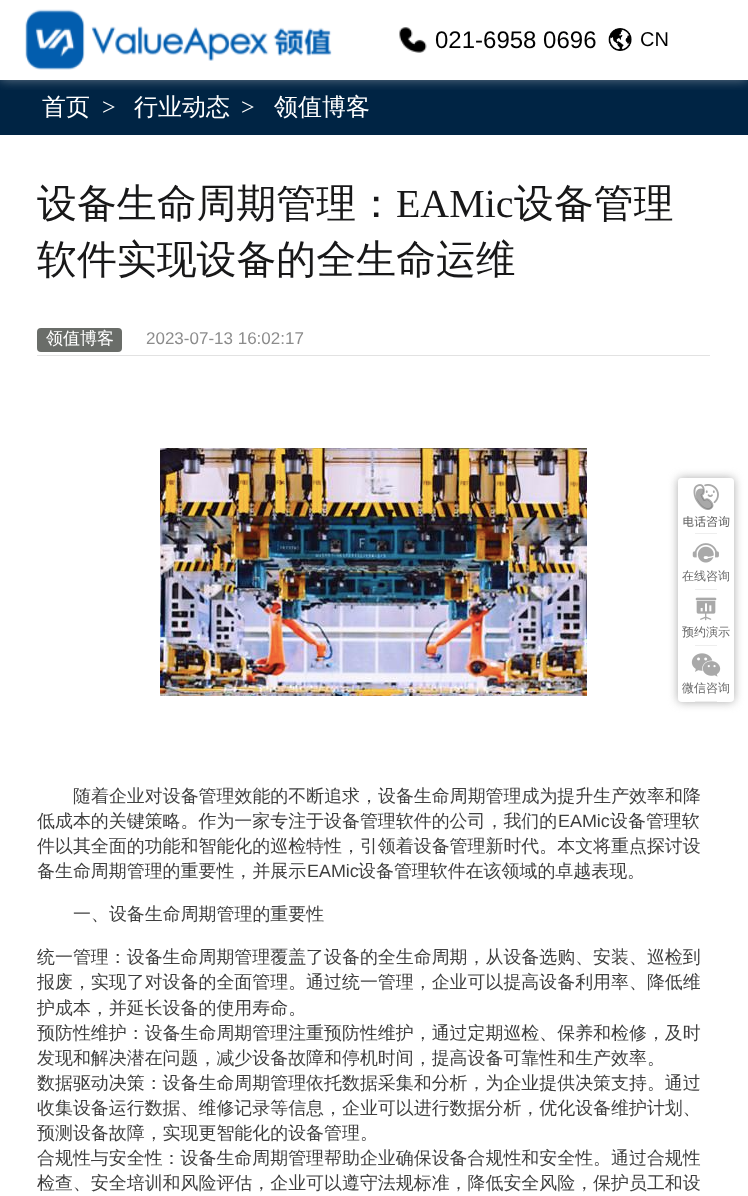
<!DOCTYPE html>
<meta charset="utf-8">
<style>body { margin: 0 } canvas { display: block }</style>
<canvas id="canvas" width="748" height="1196"></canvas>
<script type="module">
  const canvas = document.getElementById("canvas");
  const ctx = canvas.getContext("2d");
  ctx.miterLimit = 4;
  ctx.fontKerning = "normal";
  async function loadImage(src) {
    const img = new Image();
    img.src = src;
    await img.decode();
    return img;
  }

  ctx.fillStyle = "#ffffff";
  ctx.fillRect(0, 0, 748, 1196);
  ctx.fillStyle = "#002444";
  ctx.fillRect(0, 80, 748, 55);
  ctx.save();
  ctx.beginPath();
  ctx.rect(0, 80, 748, 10);
  ctx.clip();
  ctx.fillStyle = "rgba(206, 206, 206, 0.5)";
  ctx.filter = "blur(6px)";
  ctx.beginPath();
  ctx.rect(0, 0, 748, 80);
  ctx.fill();
  ctx.filter = "none";
  ctx.restore();
  ctx.drawImage(await loadImage("img1.png"), 25, 9, 307, 61);
  ctx.drawImage(await loadImage("img2.png"), 399, 27, 28, 26);
  ctx.font = "24px Liberation Sans";
  ctx.fillStyle = "#000000";
  ctx.fillText("021-6958 0696", 435, 48);
  ctx.drawImage(await loadImage("img3.png"), 608, 28, 24, 23);
  ctx.font = "20px Liberation Sans";
  ctx.fillText("CN", 640, 46);
  ctx.font = "500 24px WenQuanYi Zen Hei";
  ctx.fillStyle = "#ffffff";
  ctx.fillText("首页", 42, 115);
  ctx.font = "24px Liberation Serif";
  ctx.fillText(">", 102, 115);
  ctx.font = "500 24px WenQuanYi Zen Hei";
  ctx.fillText("行业动态", 134, 115);
  ctx.font = "24px Liberation Serif";
  ctx.fillText(">", 241, 115);
  ctx.font = "500 24px WenQuanYi Zen Hei";
  ctx.fillText("领值博客", 274, 115);
  ctx.fillStyle = "#e2e2e2";
  ctx.fillRect(37, 355, 673, 1);
  ctx.font = "500 39.9px WenQuanYi Zen Hei";
  ctx.fillStyle = "#181819";
  ctx.fillText("设备生命周期管理：", 37, 217);
  ctx.font = "39.9px Liberation Serif";
  ctx.fillText("EAMic", 396, 217);
  ctx.font = "500 39.9px WenQuanYi Zen Hei";
  ctx.fillText("设备管理", 514, 217);
  ctx.fillText("软件实现设备的全生命运维", 37, 273);
  ctx.fillStyle = "#6a6d69";
  ctx.beginPath();
  ctx.roundRect(37, 328, 85, 24, 4);
  ctx.fill();
  ctx.font = "500 17px WenQuanYi Zen Hei";
  ctx.fillStyle = "#ffffff";
  ctx.fillText("领值博客", 46, 344);
  ctx.font = "17px Liberation Sans";
  ctx.fillStyle = "#8c8c8c";
  ctx.fillText("2023-07-13 16:02:17", 146, 344);
  ctx.drawImage(await loadImage("img4.png"), 160, 448, 427, 248);
  ctx.font = "500 17.95px WenQuanYi Zen Hei";
  ctx.fillStyle = "#3f3f3f";
  ctx.fillText("随着企业对设备管理效能的不断追求，设备生命周期管理成为提升生产效率和降", 73, 802);
  ctx.fillText("低成本的关键策略。作为一家专注于设备管理软件的公司，我们的", 37, 827);
  ctx.font = "17.95px Liberation Sans";
  ctx.fillText("EAMic", 558, 827);
  ctx.font = "500 17.95px WenQuanYi Zen Hei";
  ctx.fillText("设备管理软", 610, 827);
  ctx.fillText("件以其全面的功能和智能化的巡检特性，引领着设备管理新时代。本文将重点探讨设", 37, 852);
  ctx.fillText("备生命周期管理的重要性，并展示", 37, 877);
  ctx.font = "17.95px Liberation Sans";
  ctx.fillText("EAMic", 307, 877);
  ctx.font = "500 17.95px WenQuanYi Zen Hei";
  ctx.fillText("设备管理软件在该领域的卓越表现。", 358, 877);
  ctx.fillText("一、设备生命周期管理的重要性", 73, 920);
  ctx.fillText("统一管理：设备生命周期管理覆盖了设备的全生命周期，从设备选购、安装、巡检到", 37, 963);
  ctx.fillText("报废，实现了对设备的全面管理。通过统一管理，企业可以提高设备利用率、降低维", 37, 988);
  ctx.fillText("护成本，并延长设备的使用寿命。", 37, 1014);
  ctx.fillText("预防性维护：设备生命周期管理注重预防性维护，通过定期巡检、保养和检修，及时", 37, 1039);
  ctx.fillText("发现和解决潜在问题，减少设备故障和停机时间，提高设备可靠性和生产效率。", 37, 1064);
  ctx.fillText("数据驱动决策：设备生命周期管理依托数据采集和分析，为企业提供决策支持。通过", 37, 1089);
  ctx.fillText("收集设备运行数据、维修记录等信息，企业可以进行数据分析，优化设备维护计划、", 37, 1114);
  ctx.fillText("预测设备故障，实现更智能化的设备管理。", 37, 1139);
  ctx.fillText("合规性与安全性：设备生命周期管理帮助企业确保设备合规性和安全性。通过合规性", 37, 1164);
  ctx.fillText("检查、安全培训和风险评估，企业可以遵守法规标准，降低安全风险，保护员工和设", 37, 1189);
  ctx.fillStyle = "#aaaaaa";
  ctx.filter = "blur(5px)";
  ctx.beginPath();
  ctx.roundRect(678, 478, 56, 224, 4);
  ctx.fill();
  ctx.filter = "none";
  ctx.fillStyle = "#ffffff";
  ctx.beginPath();
  ctx.roundRect(678, 478, 56, 224, 4);
  ctx.fill();
  ctx.fillStyle = "rgba(255, 255, 255, 0.6)";
  ctx.beginPath();
  ctx.roundRect(678, 478, 56, 55, [4, 4, 0, 0]);
  ctx.fill();
  ctx.drawImage(await loadImage("img5.png"), 693, 484, 26, 26);
  ctx.font = "12px Noto Sans CJK SC";
  ctx.fillStyle = "#666666";
  ctx.fillText("电话咨询", 682, 526);
  ctx.fillStyle = "#eeeeee";
  ctx.fillRect(695, 533, 22, 1);
  ctx.drawImage(await loadImage("img6.png"), 692, 543, 27, 20);
  ctx.font = "500 12px WenQuanYi Zen Hei";
  ctx.fillStyle = "#666666";
  ctx.fillText("在线咨询", 682, 580);
  ctx.fillStyle = "#eeeeee";
  ctx.fillRect(695, 589, 22, 1);
  ctx.drawImage(await loadImage("img7.png"), 695, 597, 22, 24);
  ctx.fillStyle = "#666666";
  ctx.fillText("预约演示", 682, 636);
  ctx.fillStyle = "#eeeeee";
  ctx.fillRect(695, 645, 22, 1);
  ctx.save();
  ctx.beginPath();
  ctx.roundRect(678, 478, 56, 224, 4);
  ctx.clip();
  ctx.fillStyle = "rgba(255, 255, 255, 0.6)";
  ctx.fillRect(678, 646, 56, 55);
  ctx.restore();
  ctx.drawImage(await loadImage("img8.png"), 691, 653, 30, 24);
  ctx.fillStyle = "#666666";
  ctx.fillText("微信咨询", 682, 692);
  ctx.fillStyle = "#eeeeee";
  ctx.fillRect(695, 701, 22, 1);
</script>
